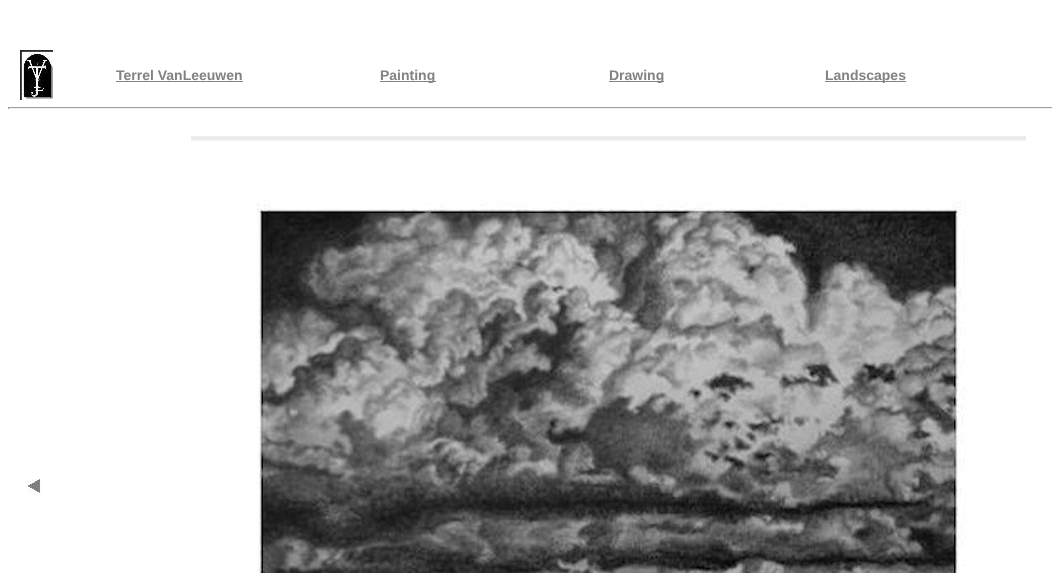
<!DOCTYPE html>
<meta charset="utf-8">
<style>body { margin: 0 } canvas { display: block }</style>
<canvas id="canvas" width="1052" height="573"></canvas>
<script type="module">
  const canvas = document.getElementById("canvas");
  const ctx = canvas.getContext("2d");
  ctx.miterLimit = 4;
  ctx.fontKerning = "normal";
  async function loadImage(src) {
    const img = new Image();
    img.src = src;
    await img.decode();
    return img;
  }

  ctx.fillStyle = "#ffffff";
  ctx.fillRect(0, 0, 1052, 573);
  ctx.drawImage(await loadImage("img1.png"), 20, 50, 33, 50);
  ctx.font = "bold 14px Liberation Sans";
  ctx.fillStyle = "#838383";
  ctx.fillText("Terrel VanLeeuwen", 116, 80);
  ctx.fillRect(116, 81, 127, 1);
  ctx.fillRect(380, 81, 56, 1);
  ctx.fillText("Painting", 380, 80);
  ctx.fillRect(609, 81, 55, 1);
  ctx.fillText("Drawing", 609, 80);
  ctx.fillRect(825, 81, 81, 1);
  ctx.fillText("Landscapes", 825, 80);
  ctx.fillStyle = "#9f9f9f";
  ctx.fillRect(8, 107, 1044, 1);
  ctx.fillStyle = "#eeeeee";
  ctx.fillRect(8, 108, 1044, 1);
  ctx.fillStyle = "#9f9f9f";
  ctx.fillRect(8, 107, 1, 2);
  ctx.drawImage(await loadImage("img2.png"), 28, 479, 13, 15);
  ctx.drawImage(await loadImage("img3.png"), 191, 136, 835, 437);
</script>
